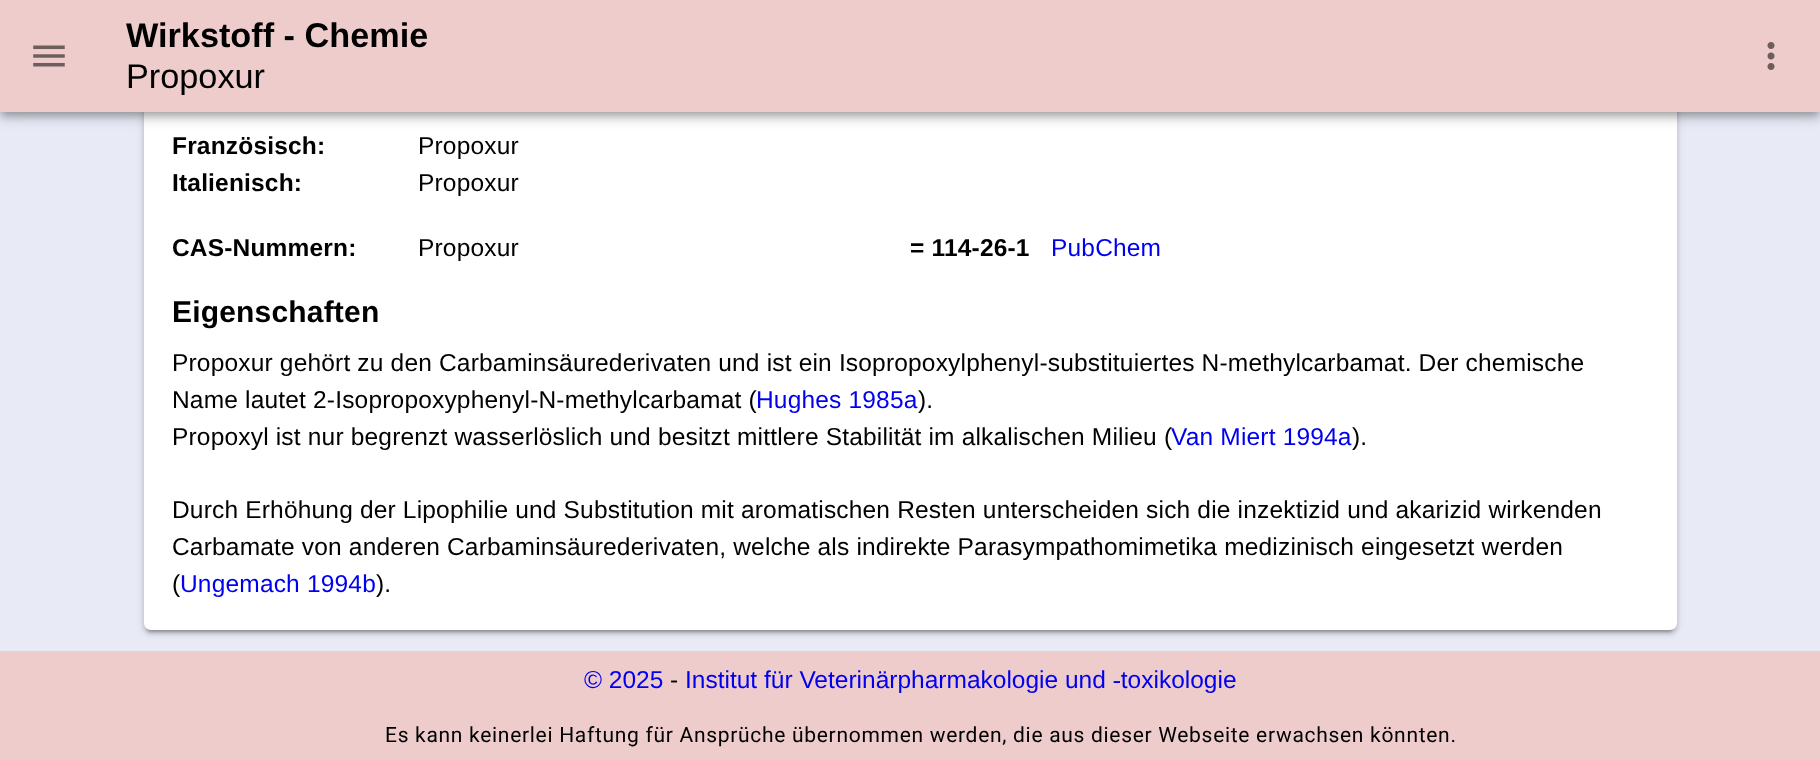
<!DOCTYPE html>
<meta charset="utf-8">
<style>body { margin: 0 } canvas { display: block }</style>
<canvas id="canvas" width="1820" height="760"></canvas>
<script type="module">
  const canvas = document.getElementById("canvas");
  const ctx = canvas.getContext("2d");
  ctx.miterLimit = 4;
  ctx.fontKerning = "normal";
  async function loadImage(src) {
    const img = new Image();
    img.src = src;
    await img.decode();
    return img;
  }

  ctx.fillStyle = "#e8eaf6";
  ctx.fillRect(0, 0, 1820, 760);
  ctx.fillStyle = "rgba(0, 0, 0, 0.12)";
  ctx.filter = "blur(4.5px)";
  ctx.beginPath();
  ctx.roundRect(144, -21, 1533, 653, 7);
  ctx.fill();
  ctx.filter = "none";
  ctx.fillStyle = "rgba(0, 0, 0, 0.14)";
  ctx.filter = "blur(2px)";
  ctx.beginPath();
  ctx.roundRect(144, -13, 1533, 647, 7);
  ctx.fill();
  ctx.filter = "none";
  ctx.fillStyle = "rgba(0, 0, 0, 0.2)";
  ctx.filter = "blur(1px)";
  ctx.beginPath();
  ctx.roundRect(147, -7, 1526, 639, 4);
  ctx.fill();
  ctx.filter = "none";
  ctx.fillStyle = "#ffffff";
  ctx.beginPath();
  ctx.roundRect(144, -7, 1533, 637, 7);
  ctx.fill();
  ctx.fillStyle = "rgba(0, 0, 0, 0.12)";
  ctx.filter = "blur(9px)";
  ctx.beginPath();
  ctx.rect(0, 2, 1820, 112);
  ctx.fill();
  ctx.filter = "none";
  ctx.fillStyle = "rgba(0, 0, 0, 0.14)";
  ctx.filter = "blur(4.5px)";
  ctx.beginPath();
  ctx.rect(0, 7, 1820, 112);
  ctx.fill();
  ctx.filter = "none";
  ctx.fillStyle = "rgba(0, 0, 0, 0.2)";
  ctx.filter = "blur(3.5px)";
  ctx.beginPath();
  ctx.rect(2, 5, 1816, 109);
  ctx.fill();
  ctx.filter = "none";
  ctx.fillStyle = "#eecccc";
  ctx.fillRect(0, 0, 1820, 112);
  ctx.drawImage(await loadImage("img1.png"), 33, 45, 32, 22);
  ctx.font = "bold 34.25px Liberation Sans";
  ctx.fillStyle = "#000000";
  ctx.fillText("Wirkstoff - Chemie", 126, 47);
  ctx.font = "34.25px Liberation Sans";
  ctx.fillText("Propoxur", 126, 88);
  ctx.drawImage(await loadImage("img2.png"), 1767, 42, 8, 28);
  ctx.letterSpacing = "0.18px";
  ctx.font = "bold 24.5px Liberation Sans";
  ctx.fillText("Französisch:", 172, 154);
  ctx.font = "24.5px Liberation Sans";
  ctx.fillText("Propoxur", 418, 154);
  ctx.font = "bold 24.5px Liberation Sans";
  ctx.fillText("Italienisch:", 172, 191);
  ctx.font = "24.5px Liberation Sans";
  ctx.fillText("Propoxur", 418, 191);
  ctx.font = "bold 24.5px Liberation Sans";
  ctx.fillText("CAS-Nummern:", 172, 256);
  ctx.font = "24.5px Liberation Sans";
  ctx.fillText("Propoxur", 418, 256);
  ctx.font = "bold 24.5px Liberation Sans";
  ctx.fillText("= 114-26-1", 910, 256);
  ctx.font = "24.5px Liberation Sans";
  ctx.fillStyle = "#0000ee";
  ctx.fillText("PubChem", 1051, 256);
  ctx.font = "bold 30px Liberation Sans";
  ctx.fillStyle = "#000000";
  ctx.fillText("Eigenschaften", 172, 322);
  ctx.font = "24.5px Liberation Sans";
  ctx.fillText("Propoxur gehört zu den Carbaminsäurederivaten und ist ein Isopropoxylphenyl-substituiertes N-methylcarbamat. Der chemische", 172, 371);
  ctx.fillText("Name lautet 2-Isopropoxyphenyl-N-methylcarbamat (", 172, 408);
  ctx.fillStyle = "#0000ee";
  ctx.fillText("Hughes 1985a", 756, 408);
  ctx.fillStyle = "#000000";
  ctx.fillText(").", 918, 408);
  ctx.fillText("Propoxyl ist nur begrenzt wasserlöslich und besitzt mittlere Stabilität im alkalischen Milieu (", 172, 445);
  ctx.fillStyle = "#0000ee";
  ctx.fillText("Van Miert 1994a", 1171, 445);
  ctx.fillStyle = "#000000";
  ctx.fillText(").", 1352, 445);
  ctx.fillText("Durch Erhöhung der Lipophilie und Substitution mit aromatischen Resten unterscheiden sich die inzektizid und akarizid wirkenden", 172, 518);
  ctx.fillText("Carbamate von anderen Carbaminsäurederivaten, welche als indirekte Parasympathomimetika medizinisch eingesetzt werden", 172, 555);
  ctx.fillText("(", 172, 592);
  ctx.fillStyle = "#0000ee";
  ctx.fillText("Ungemach 1994b", 180, 592);
  ctx.fillStyle = "#000000";
  ctx.fillText(").", 376, 592);
  ctx.fillStyle = "#eecccc";
  ctx.fillRect(0, 651, 1820, 109);
  ctx.letterSpacing = "0px";
  ctx.fillStyle = "#0000ee";
  ctx.fillText("© 2025", 584, 688);
  ctx.fillStyle = "#000000";
  ctx.fillText("-", 670, 688);
  ctx.fillStyle = "#0000ee";
  ctx.fillText("Institut für Veterinärpharmakologie und ‑toxikologie", 685, 688);
  ctx.letterSpacing = "0.7px";
  ctx.font = "21px Roboto";
  ctx.fillStyle = "#000000";
  ctx.fillText("Es kann keinerlei Haftung für Ansprüche übernommen werden, die aus dieser Webseite erwachsen könnten.", 385, 742);
</script>
